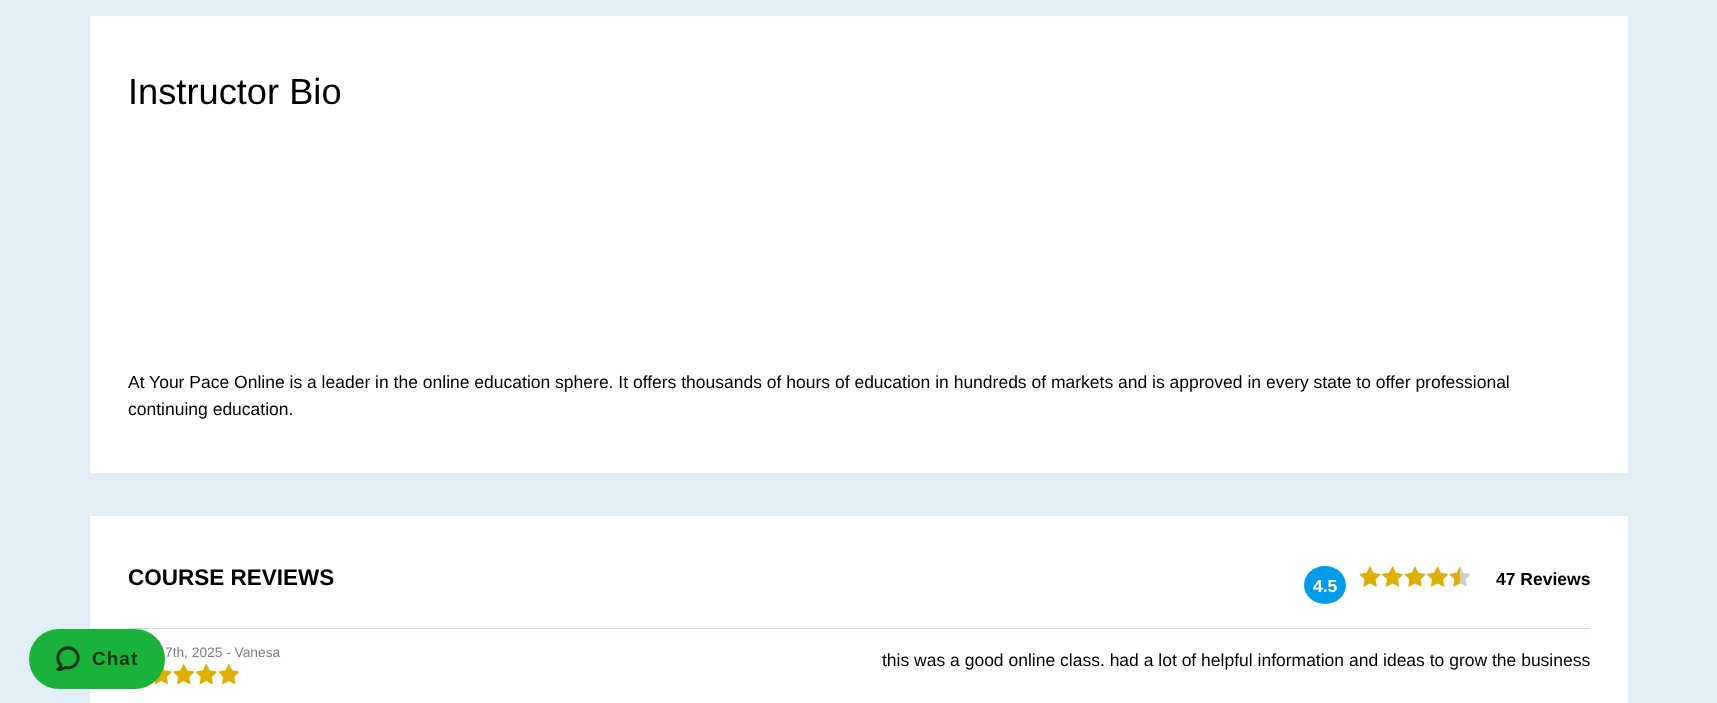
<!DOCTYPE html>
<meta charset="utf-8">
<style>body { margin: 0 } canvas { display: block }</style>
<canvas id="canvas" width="1717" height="703"></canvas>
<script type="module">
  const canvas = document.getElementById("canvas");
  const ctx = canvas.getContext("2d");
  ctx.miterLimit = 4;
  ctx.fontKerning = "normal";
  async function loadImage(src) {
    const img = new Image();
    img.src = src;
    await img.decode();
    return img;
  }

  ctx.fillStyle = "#e0eff7";
  ctx.fillRect(0, 0, 1717, 703);
  ctx.fillStyle = "#ffffff";
  ctx.fillRect(90, 516, 1538, 187);
  ctx.drawImage(await loadImage("img5.png"), 154, 667, 18, 17);
  ctx.fillStyle = "#1ab23b";
  ctx.beginPath();
  ctx.roundRect(29, 629, 136, 60, 30);
  ctx.fill();
  ctx.drawImage(await loadImage("img1.png"), 56, 646, 24, 25);
  ctx.letterSpacing = "1px";
  ctx.font = "bold 19px Liberation Sans";
  ctx.fillStyle = "#113619";
  ctx.fillText("Chat", 92, 665);
  ctx.fillStyle = "#ffffff";
  ctx.fillRect(90, 16, 1538, 457);
  ctx.letterSpacing = "0px";
  ctx.font = "36.25px Liberation Sans";
  ctx.fillStyle = "#000000";
  ctx.fillText("Instructor Bio", 128, 104);
  ctx.font = "17.5px Liberation Sans";
  ctx.fillText("At Your Pace Online is a leader in the online education sphere. It offers thousands of hours of education in hundreds of markets and is approved in every state to offer professional", 128, 388);
  ctx.fillText("continuing education.", 128, 415);
  ctx.fillStyle = "#bfdff9";
  ctx.fillRect(128, 628, 1462, 1);
  ctx.font = "bold 22.5px Liberation Sans";
  ctx.fillStyle = "#000000";
  ctx.fillText("COURSE REVIEWS", 128, 585);
  ctx.fillStyle = "#009cea";
  ctx.beginPath();
  ctx.ellipse(1325, 585, 21, 19, 0, 0, Math.PI * 2);
  ctx.fill();
  ctx.font = "bold 17.5px Liberation Sans";
  ctx.fillStyle = "#ffffff";
  ctx.fillText("4.5", 1313, 592);
  ctx.drawImage(await loadImage("img2.png"), 1359, 566, 22, 21);
  ctx.drawImage(await loadImage("img3.png"), 1382, 566, 21, 21);
  ctx.drawImage(await loadImage("img2.png"), 1404, 566, 22, 21);
  ctx.drawImage(await loadImage("img3.png"), 1427, 566, 21, 21);
  ctx.drawImage(await loadImage("img4.png"), 1449, 566, 22, 21);
  ctx.fillStyle = "#000000";
  ctx.fillText("47 Reviews", 1496, 585);
  ctx.font = "13.75px Liberation Sans";
  ctx.fillStyle = "#808080";
  ctx.fillText("7th, 2025 - Vanesa", 165, 657);
  ctx.drawImage(await loadImage("img6.png"), 173, 664, 22, 20);
  ctx.drawImage(await loadImage("img7.png"), 195, 664, 22, 20);
  ctx.drawImage(await loadImage("img6.png"), 218, 664, 22, 20);
  ctx.font = "17.5px Liberation Sans";
  ctx.fillStyle = "#000000";
  ctx.fillText("this was a good online class. had a lot of helpful information and ideas to grow the business", 882, 666);
</script>
